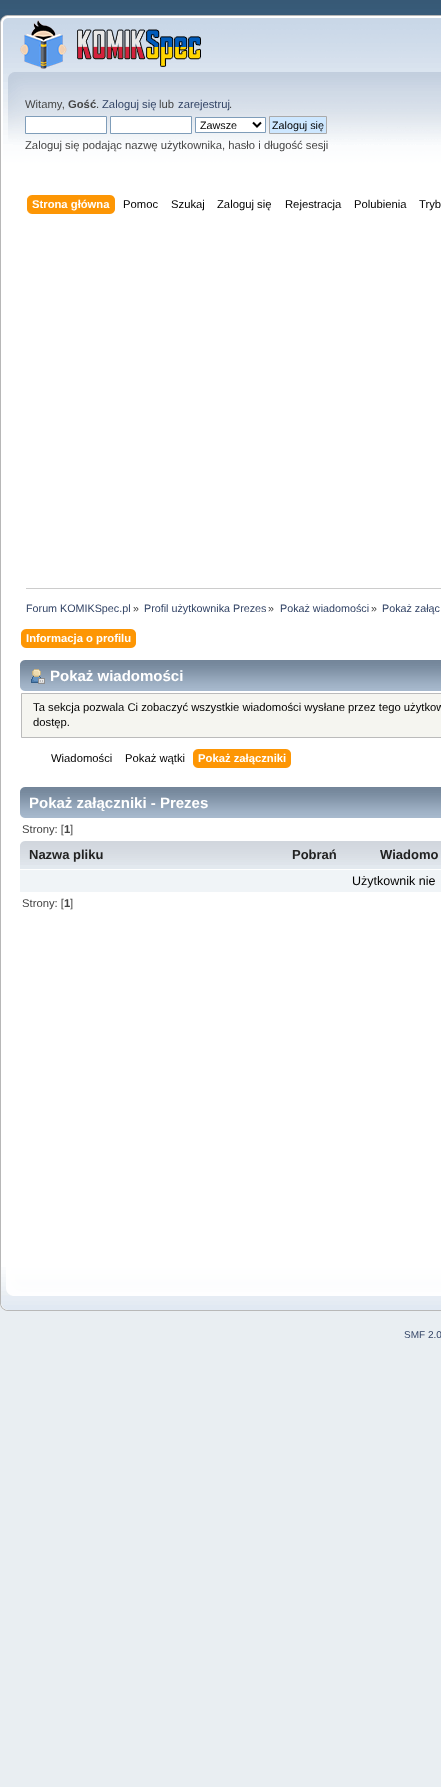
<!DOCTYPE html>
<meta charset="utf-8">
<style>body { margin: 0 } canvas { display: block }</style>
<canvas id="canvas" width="441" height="1787"></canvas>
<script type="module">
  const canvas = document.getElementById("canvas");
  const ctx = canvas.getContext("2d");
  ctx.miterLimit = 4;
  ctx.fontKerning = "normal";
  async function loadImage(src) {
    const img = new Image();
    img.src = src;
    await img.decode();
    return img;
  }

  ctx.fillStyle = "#e9eef2";
  ctx.fillRect(0, 0, 441, 1787);
  ctx.drawImage(await loadImage("img1.png"), 0, 0, 441, 15);
  ctx.drawImage(await loadImage("img2.png"), 0, 15, 441, 214);
  ctx.drawImage(await loadImage("img3.png"), 20, 20, 181, 49);
  ctx.font = "11.25px Liberation Sans";
  ctx.fillStyle = "#444444";
  ctx.fillText("Witamy,", 25, 108);
  ctx.font = "bold 11.25px Liberation Sans";
  ctx.fillText("Gość", 68, 108);
  ctx.font = "11.25px Liberation Sans";
  ctx.fillText(".", 96, 108);
  ctx.fillStyle = "#334466";
  ctx.fillText("Zaloguj się", 102, 108);
  ctx.fillStyle = "#444444";
  ctx.fillText("lub", 159, 108);
  ctx.fillStyle = "#334466";
  ctx.fillText("zarejestruj", 178, 108);
  ctx.fillStyle = "#444444";
  ctx.fillText(".", 229, 108);
  ctx.fillStyle = "#ffffff";
  ctx.beginPath();
  ctx.rect(25.5, 116.5, 81, 17);
  ctx.fill();
  ctx.strokeStyle = "#7f9db9";
  ctx.stroke();
  ctx.beginPath();
  ctx.rect(110.5, 116.5, 81, 17);
  ctx.fill();
  ctx.stroke();
  ctx.beginPath();
  ctx.rect(195.5, 117.5, 70, 15);
  ctx.fill();
  ctx.stroke();
  ctx.beginPath();
  ctx.moveTo(253, 122.5);
  ctx.lineTo(257, 126.5);
  ctx.lineTo(261, 122.5);
  ctx.strokeStyle = "#000000";
  ctx.lineWidth = 2;
  ctx.stroke();
  ctx.font = "10.75px Liberation Sans";
  ctx.fillStyle = "#000000";
  ctx.fillText("Zawsze", 200, 129);
  ctx.fillStyle = "#cde7ff";
  ctx.beginPath();
  ctx.rect(269.5, 116.5, 57, 17);
  ctx.fill();
  ctx.strokeStyle = "#aaaaaa";
  ctx.lineWidth = 1;
  ctx.stroke();
  ctx.fillStyle = "#000000";
  ctx.fillText("Zaloguj się", 272, 129);
  ctx.font = "11.25px Liberation Sans";
  ctx.fillStyle = "#444444";
  ctx.fillText("Zaloguj się podając nazwę użytkownika, hasło i długość sesji", 25, 149);
  ctx.drawImage(await loadImage("img4.png"), 32, 195, 83, 19);
  ctx.drawImage(await loadImage("img5.png"), 27, 195, 5, 19);
  ctx.font = "bold 11.25px Liberation Sans";
  ctx.fillStyle = "#ffffff";
  ctx.fillText("Strona główna", 32, 208);
  ctx.font = "11.25px Liberation Sans";
  ctx.fillStyle = "#000000";
  ctx.fillText("Pomoc", 123, 208);
  ctx.fillText("Szukaj", 171, 208);
  ctx.fillText("Zaloguj się", 217, 208);
  ctx.fillText("Rejestracja", 285, 208);
  ctx.fillText("Polubienia", 354, 208);
  ctx.fillText("Tryb", 419, 208);
  ctx.fillStyle = "#ffffff";
  ctx.fillRect(1, 229, 440, 1038);
  ctx.fillStyle = "#b7b7b7";
  ctx.fillRect(0, 229, 1, 1038);
  ctx.fillStyle = "#cccccc";
  ctx.fillRect(26, 588, 415, 1);
  ctx.font = "10.75px Liberation Sans";
  ctx.fillStyle = "#334466";
  ctx.fillText("Forum KOMIKSpec.pl", 26, 612);
  ctx.fillStyle = "#444444";
  ctx.fillText("»", 133, 612);
  ctx.fillStyle = "#334466";
  ctx.fillText("Profil użytkownika Prezes", 144, 612);
  ctx.fillStyle = "#444444";
  ctx.fillText("»", 268, 612);
  ctx.fillStyle = "#334466";
  ctx.fillText("Pokaż wiadomości", 280, 612);
  ctx.fillStyle = "#444444";
  ctx.fillText("»", 371, 612);
  ctx.fillStyle = "#334466";
  ctx.fillText("Pokaż załąc", 382, 612);
  ctx.drawImage(await loadImage("img6.png"), 26, 629, 110, 19);
  ctx.drawImage(await loadImage("img5.png"), 21, 629, 5, 19);
  ctx.font = "bold 11.25px Liberation Sans";
  ctx.fillStyle = "#ffffff";
  ctx.fillText("Informacja o profilu", 26, 642);
  ctx.drawImage(await loadImage("img7.png"), 20, 660, 421, 31);
  ctx.drawImage(await loadImage("img8.png"), 31, 669, 14, 15);
  ctx.font = "bold 15px Liberation Sans";
  ctx.fillText("Pokaż wiadomości", 50, 681);
  ctx.fillStyle = "#f5f5f0";
  ctx.beginPath();
  ctx.rect(21.5, 693.5, 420, 44);
  ctx.fill();
  ctx.strokeStyle = "#bbbbbb";
  ctx.stroke();
  ctx.font = "11.25px Liberation Sans";
  ctx.fillStyle = "#000000";
  ctx.fillText("Ta sekcja pozwala Ci zobaczyć wszystkie wiadomości wysłane przez tego użytkow", 33, 711);
  ctx.fillText("dostęp.", 33, 726);
  ctx.fillText("Wiadomości", 51, 762);
  ctx.fillText("Pokaż wątki", 125, 762);
  ctx.drawImage(await loadImage("img9.png"), 198, 749, 93, 19);
  ctx.drawImage(await loadImage("img5.png"), 193, 749, 5, 19);
  ctx.font = "bold 11.25px Liberation Sans";
  ctx.fillStyle = "#ffffff";
  ctx.fillText("Pokaż załączniki", 198, 762);
  ctx.drawImage(await loadImage("img7.png"), 20, 787, 421, 31);
  ctx.font = "bold 15px Liberation Sans";
  ctx.fillText("Pokaż załączniki - Prezes", 29, 808);
  ctx.font = "11.25px Liberation Sans";
  ctx.fillStyle = "#444444";
  ctx.fillText("Strony: [", 22, 833);
  ctx.font = "bold 11.25px Liberation Sans";
  ctx.fillText("1", 64, 833);
  ctx.font = "11.25px Liberation Sans";
  ctx.fillText("]", 70, 833);
  ctx.fillStyle = "#e3e9ef";
  ctx.fillRect(20, 865, 421, 4);
  ctx.drawImage(await loadImage("img10.png"), 20, 841, 237, 24);
  ctx.font = "bold 13px Liberation Sans";
  ctx.fillStyle = "#222222";
  ctx.fillText("Nazwa pliku", 29, 859);
  ctx.drawImage(await loadImage("img11.png"), 257, 841, 114, 24);
  ctx.fillText("Pobrań", 292, 859);
  ctx.drawImage(await loadImage("img12.png"), 371, 841, 70, 24);
  ctx.fillText("Wiadomo", 380, 859);
  ctx.fillStyle = "#f0f4f7";
  ctx.fillRect(20, 870, 421, 22);
  ctx.font = "12.5px Liberation Sans";
  ctx.fillStyle = "#000000";
  ctx.fillText("Użytkownik nie", 352, 885);
  ctx.font = "11.25px Liberation Sans";
  ctx.fillStyle = "#444444";
  ctx.fillText("Strony: [", 22, 907);
  ctx.font = "bold 11.25px Liberation Sans";
  ctx.fillText("1", 64, 907);
  ctx.font = "11.25px Liberation Sans";
  ctx.fillText("]", 70, 907);
  ctx.drawImage(await loadImage("img13.png"), 0, 1267, 441, 44);
  ctx.font = "10px Liberation Sans";
  ctx.fillStyle = "#334466";
  ctx.fillText("SMF 2.0", 404, 1338);
</script>
